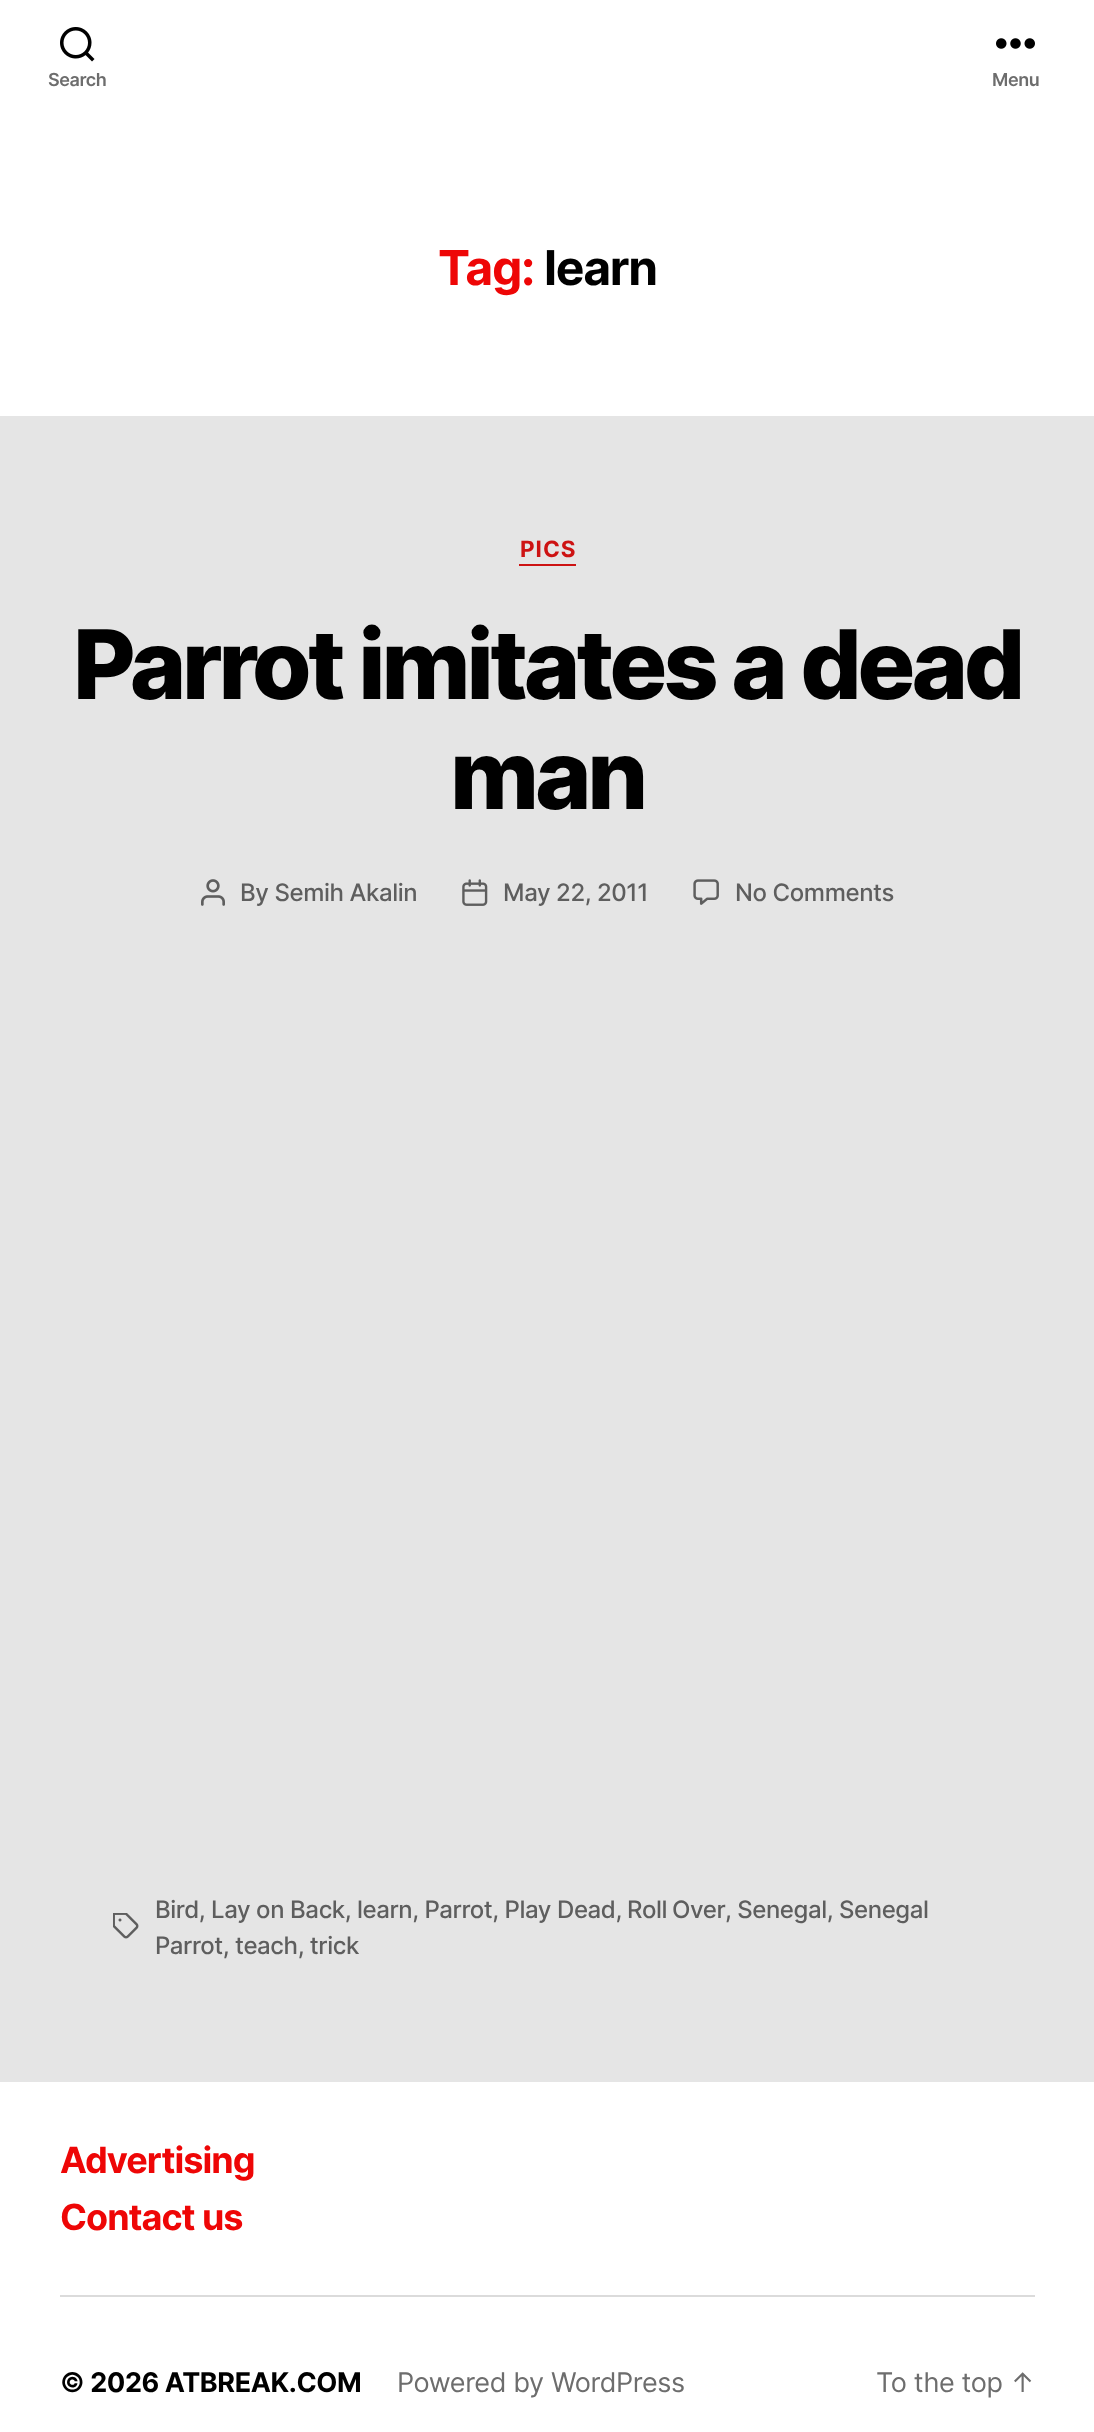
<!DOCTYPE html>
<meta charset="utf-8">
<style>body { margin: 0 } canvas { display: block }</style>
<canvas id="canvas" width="1094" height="2432"></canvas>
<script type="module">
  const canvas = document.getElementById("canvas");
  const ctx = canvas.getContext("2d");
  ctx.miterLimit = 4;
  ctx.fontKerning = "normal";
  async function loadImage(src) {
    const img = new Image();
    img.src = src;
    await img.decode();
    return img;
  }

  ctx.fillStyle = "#e5e5e5";
  ctx.fillRect(0, 0, 1094, 2432);
  ctx.fillStyle = "#ffffff";
  ctx.fillRect(0, 0, 1094, 416);
  ctx.drawImage(await loadImage("img1.png"), 60, 27, 35, 35);
  ctx.letterSpacing = "-0.4px";
  ctx.font = "600 18px Inter";
  ctx.fillStyle = "#6d6d6d";
  ctx.fillText("Search", 48, 86);
  ctx.drawImage(await loadImage("img2.png"), 996, 38, 39, 11);
  ctx.fillText("Menu", 992, 86);
  ctx.letterSpacing = "-1.25px";
  ctx.font = "bold 48px Inter";
  ctx.fillStyle = "#ee0606";
  ctx.fillText("Tag:", 438, 285);
  ctx.fillStyle = "#000000";
  ctx.fillText("learn", 544, 285);
  ctx.fillStyle = "#cd1313";
  ctx.fillRect(519, 564, 57, 2);
  ctx.letterSpacing = "1px";
  ctx.font = "bold 22.5px Inter";
  ctx.fillText("PICS", 520, 557);
  ctx.letterSpacing = "-4px";
  ctx.font = "800 96px Inter";
  ctx.fillStyle = "#000000";
  ctx.fillText("Parrot imitates a dead", 73, 699);
  ctx.fillText("man", 450, 809);
  ctx.drawImage(await loadImage("img3.png"), 201, 879, 24, 27);
  ctx.letterSpacing = "-0.4px";
  ctx.font = "500 24px Inter";
  ctx.fillStyle = "#5e5e5e";
  ctx.fillText("By Semih Akalin", 240, 901);
  ctx.drawImage(await loadImage("img4.png"), 462, 879, 26, 27);
  ctx.fillText("May 22, 2011", 503, 901);
  ctx.drawImage(await loadImage("img5.png"), 693, 879, 26, 26);
  ctx.fillText("No Comments", 735, 901);
  ctx.drawImage(await loadImage("img6.png"), 113, 1913, 26, 26);
  ctx.fillText("Bird, Lay on Back, learn, Parrot, Play Dead,", 155, 1918);
  ctx.wordSpacing = "-1px";
  ctx.fillText("Roll Over", 627, 1918);
  ctx.wordSpacing = "0px";
  ctx.fillText(", Senegal, Senegal", 725, 1918);
  ctx.fillText("Parrot, teach, trick", 155, 1954);
  ctx.fillStyle = "#ffffff";
  ctx.fillRect(0, 2082, 1094, 350);
  ctx.fillStyle = "#dbdbdb";
  ctx.fillRect(60, 2295, 975, 2);
  ctx.letterSpacing = "-1px";
  ctx.font = "bold 36px Inter";
  ctx.fillStyle = "#ee0606";
  ctx.fillText("Advertising", 60, 2173);
  ctx.fillText("Contact us", 60, 2230);
  ctx.letterSpacing = "-0.4px";
  ctx.font = "bold 27px Inter";
  ctx.fillStyle = "#000000";
  ctx.fillText("© 2026 ATBREAK.COM", 60, 2392);
  ctx.font = "27px Inter";
  ctx.fillStyle = "#6d6d6d";
  ctx.fillText("Powered by WordPress", 397, 2392);
  ctx.fillText("To the top ↑", 876, 2392);
</script>
